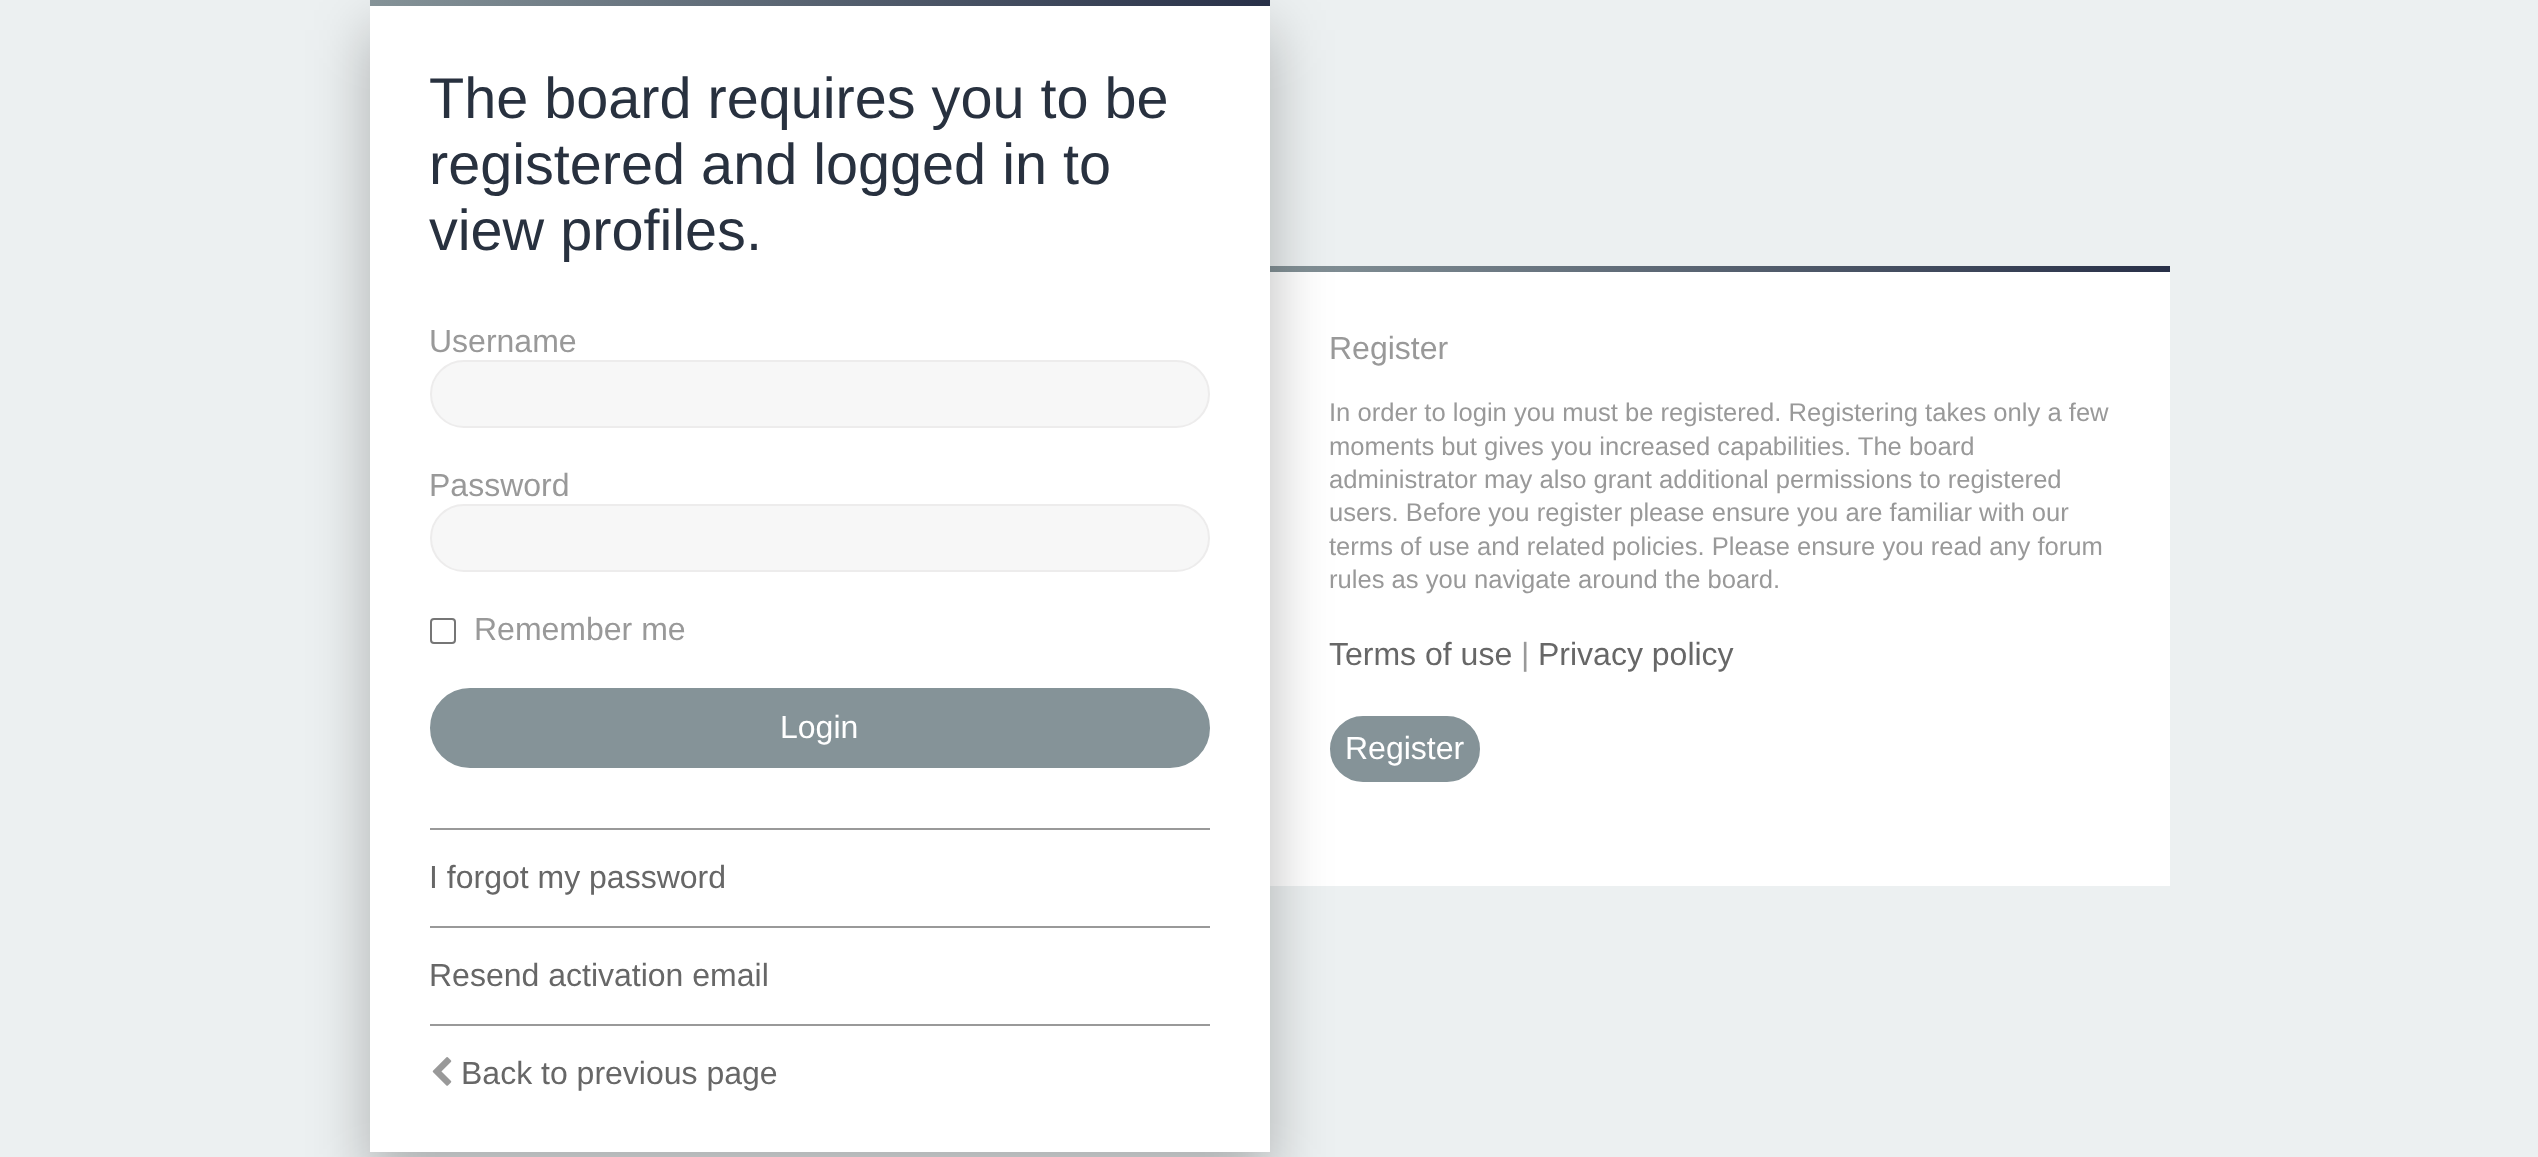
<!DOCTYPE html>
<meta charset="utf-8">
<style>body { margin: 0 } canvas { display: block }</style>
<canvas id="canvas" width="2538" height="1157"></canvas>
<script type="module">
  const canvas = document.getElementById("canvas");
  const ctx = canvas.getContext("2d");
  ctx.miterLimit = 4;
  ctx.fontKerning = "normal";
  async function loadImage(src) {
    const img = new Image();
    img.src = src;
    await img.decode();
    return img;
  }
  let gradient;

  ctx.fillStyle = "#ecf0f1";
  ctx.fillRect(0, 0, 2538, 1157);
  ctx.fillStyle = "#ffffff";
  ctx.fillRect(1270, 272, 900, 614);
  gradient = ctx.createLinearGradient(1270, 269, 2170, 269);
  gradient.addColorStop(0, "#859398");
  gradient.addColorStop(1, "#283048");
  ctx.fillStyle = gradient;
  ctx.fillRect(1270, 266, 900, 6);
  ctx.fillStyle = "#859398";
  ctx.beginPath();
  ctx.roundRect(1331, 717, 148, 64, 32);
  ctx.fill();
  ctx.strokeStyle = "#859398";
  ctx.lineWidth = 2;
  ctx.stroke();
  ctx.fillStyle = "rgba(0, 0, 0, 0.27)";
  ctx.filter = "blur(30px)";
  ctx.beginPath();
  ctx.rect(370, 30, 900, 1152);
  ctx.fill();
  ctx.filter = "none";
  ctx.fillStyle = "#ffffff";
  ctx.fillRect(370, 6, 900, 1146);
  gradient = ctx.createLinearGradient(370, 3, 1270, 3);
  gradient.addColorStop(0, "#859398");
  gradient.addColorStop(1, "#283048");
  ctx.fillStyle = gradient;
  ctx.fillRect(370, 0, 900, 6);
  ctx.font = "57.6px Liberation Sans";
  ctx.fillStyle = "#28313f";
  ctx.fillText("The board requires you to be", 429, 118);
  ctx.fillText("registered and logged in to", 429, 184);
  ctx.fillText("view profiles.", 429, 250);
  ctx.font = "32px Liberation Sans";
  ctx.fillStyle = "#999999";
  ctx.fillText("Username", 429, 352);
  ctx.fillStyle = "#f7f7f7";
  ctx.beginPath();
  ctx.roundRect(431, 361, 778, 66, 33);
  ctx.fill();
  ctx.strokeStyle = "#edecec";
  ctx.stroke();
  ctx.fillStyle = "#999999";
  ctx.fillText("Password", 429, 496);
  ctx.fillStyle = "#f7f7f7";
  ctx.beginPath();
  ctx.roundRect(431, 505, 778, 66, 33);
  ctx.fill();
  ctx.stroke();
  ctx.beginPath();
  ctx.roundRect(431, 619, 24, 24, 3);
  ctx.strokeStyle = "#767676";
  ctx.stroke();
  ctx.fillStyle = "#999999";
  ctx.fillText("Remember me", 474, 640);
  ctx.fillStyle = "#859398";
  ctx.beginPath();
  ctx.roundRect(431, 689, 778, 78, 39);
  ctx.fill();
  ctx.strokeStyle = "#859398";
  ctx.stroke();
  ctx.fillStyle = "#ffffff";
  ctx.fillText("Login", 780, 738);
  ctx.fillStyle = "#999999";
  ctx.fillRect(430, 828, 780, 2);
  ctx.fillStyle = "#676767";
  ctx.fillText("I forgot my password", 429, 888);
  ctx.fillStyle = "#999999";
  ctx.fillRect(430, 926, 780, 2);
  ctx.fillStyle = "#676767";
  ctx.fillText("Resend activation email", 429, 986);
  ctx.fillStyle = "#999999";
  ctx.fillRect(430, 1024, 780, 2);
  ctx.drawImage(await loadImage("img1.png"), 432, 1057, 20, 29);
  ctx.fillStyle = "#676767";
  ctx.fillText("Back to previous page", 461, 1084);
  ctx.fillStyle = "#999999";
  ctx.fillText("Register", 1329, 359);
  ctx.font = "25.6px Liberation Sans";
  ctx.fillText("In order to login you must be registered. Registering takes only a few", 1329, 421);
  ctx.fillText("moments but gives you increased capabilities. The board", 1329, 455);
  ctx.fillText("administrator may also grant additional permissions to registered", 1329, 488);
  ctx.fillText("users. Before you register please ensure you are familiar with our", 1329, 521);
  ctx.fillText("terms of use and related policies. Please ensure you read any forum", 1329, 555);
  ctx.fillText("rules as you navigate around the board.", 1329, 588);
  ctx.font = "32px Liberation Sans";
  ctx.fillStyle = "#676767";
  ctx.fillText("Terms of use", 1329, 665);
  ctx.fillStyle = "#999999";
  ctx.fillText("|", 1521, 665);
  ctx.fillStyle = "#676767";
  ctx.fillText("Privacy policy", 1538, 665);
  ctx.fillStyle = "#ffffff";
  ctx.fillText("Register", 1345, 759);
</script>
